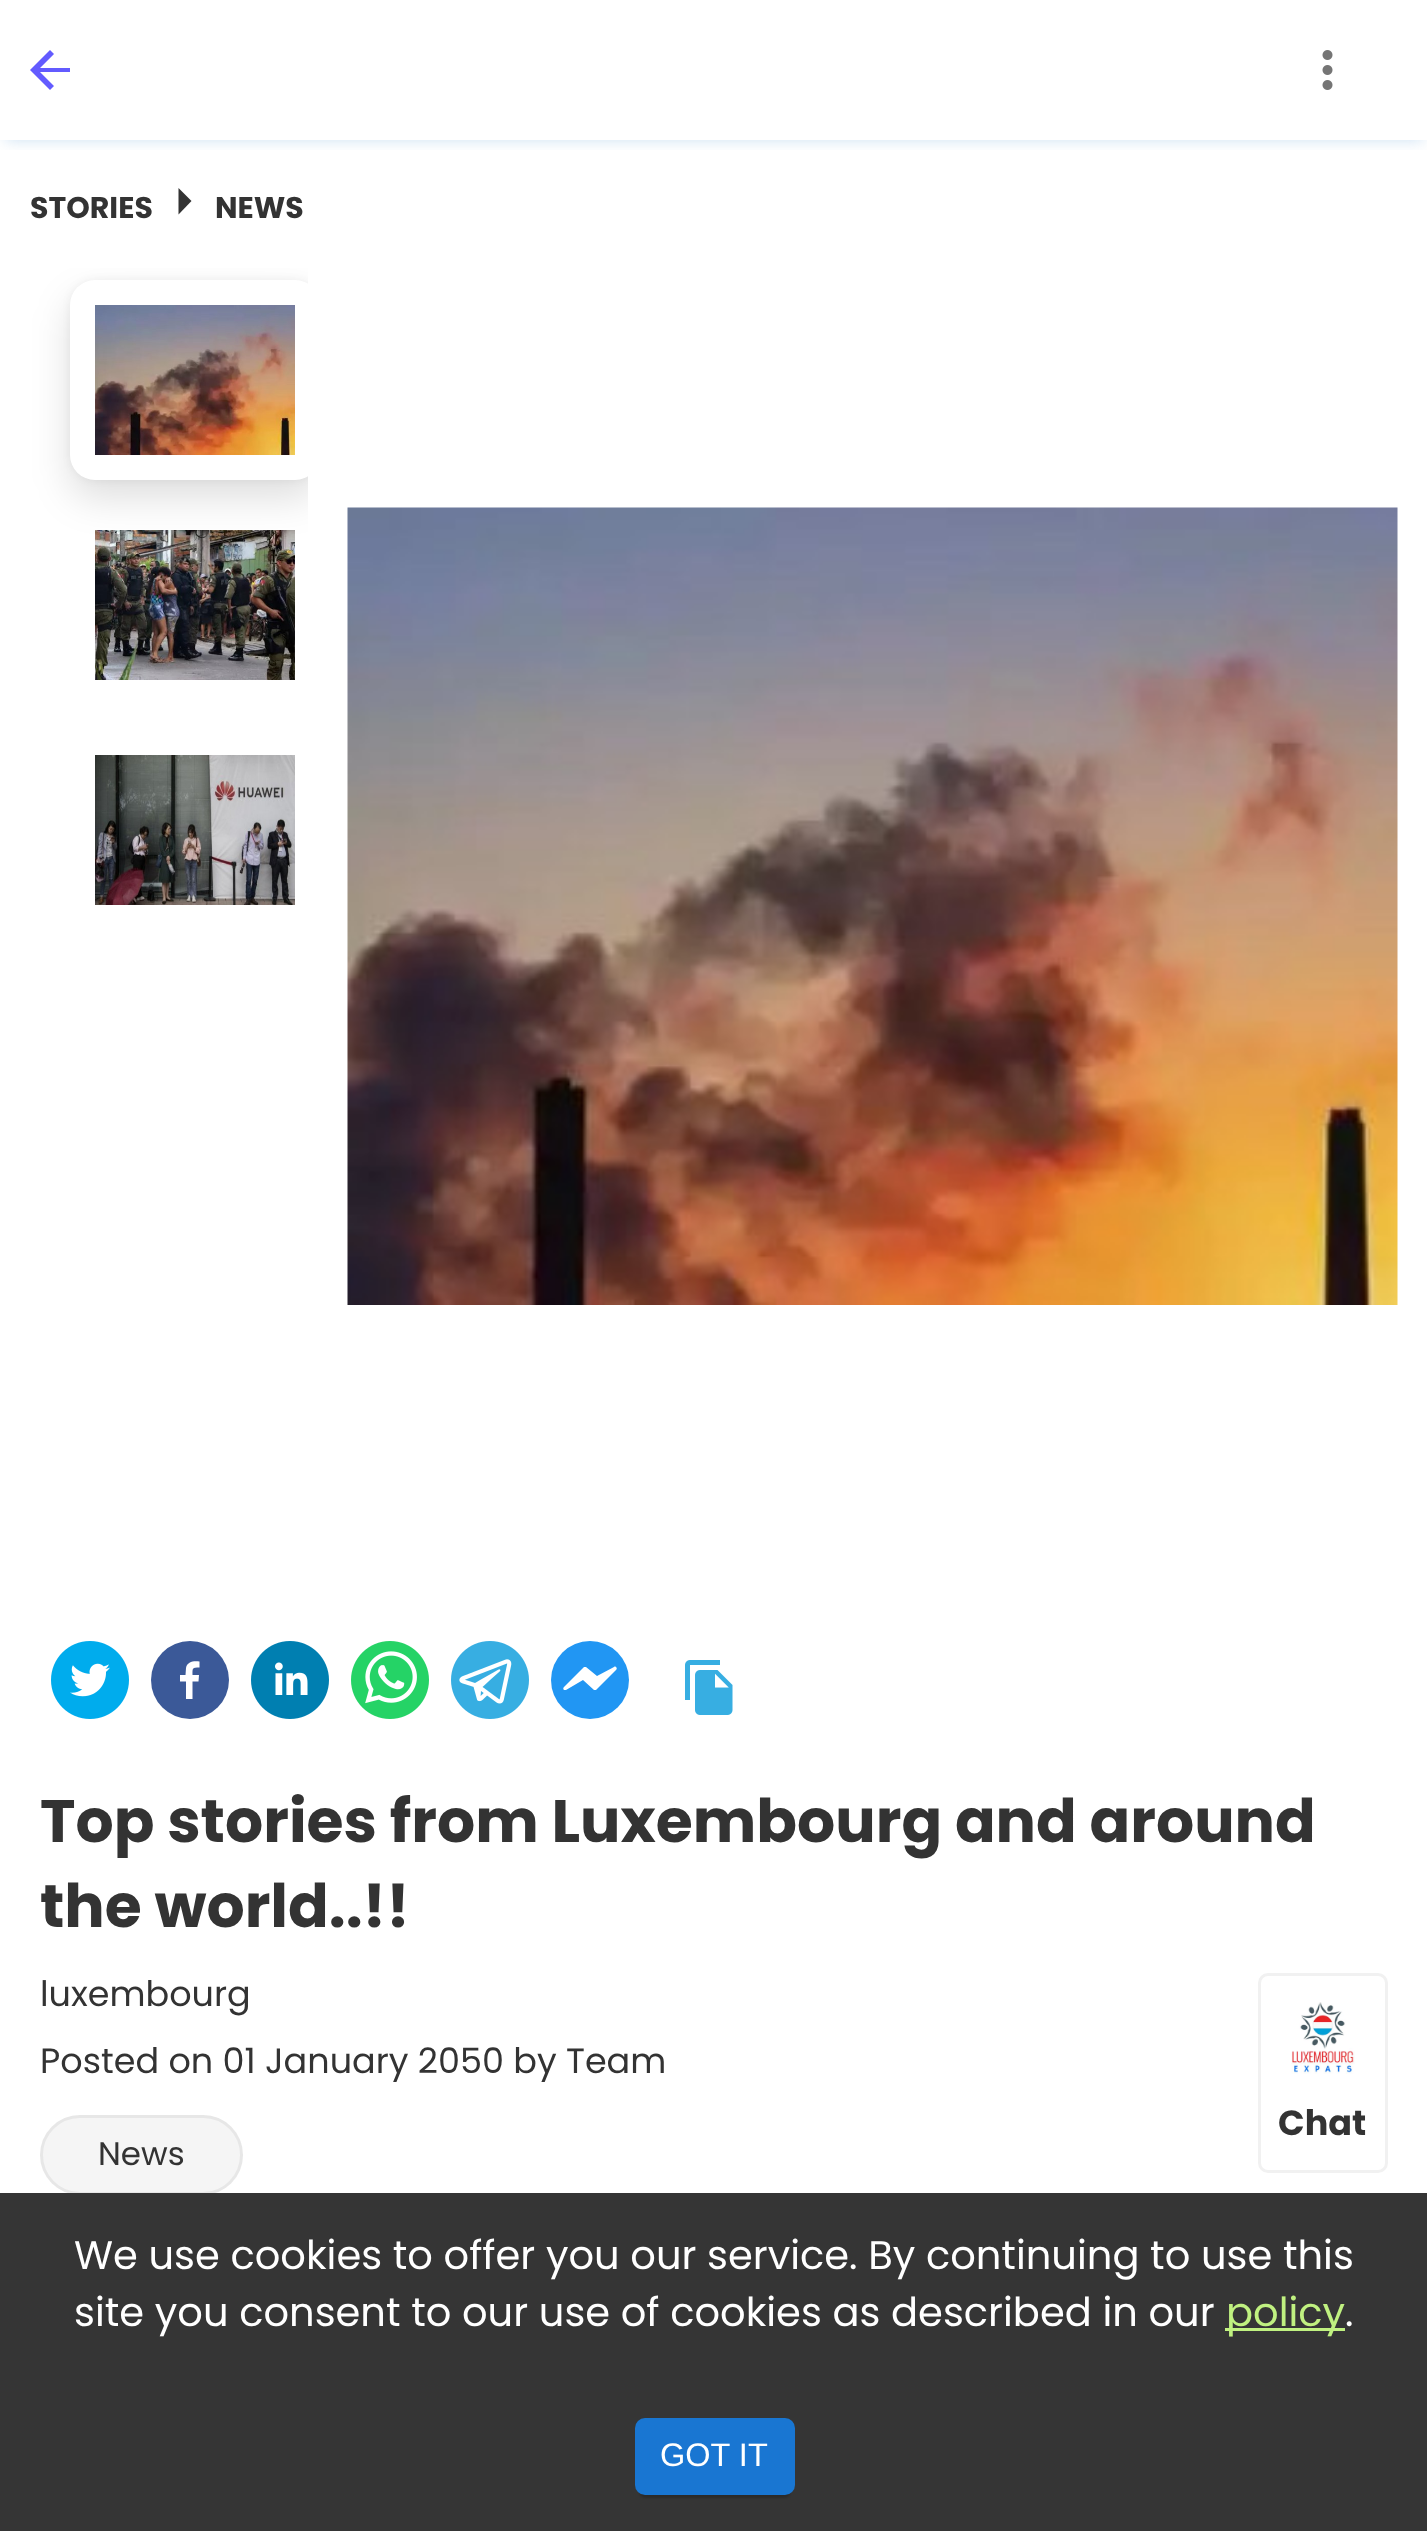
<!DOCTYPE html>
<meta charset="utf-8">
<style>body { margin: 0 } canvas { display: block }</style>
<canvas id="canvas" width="1427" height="2531"></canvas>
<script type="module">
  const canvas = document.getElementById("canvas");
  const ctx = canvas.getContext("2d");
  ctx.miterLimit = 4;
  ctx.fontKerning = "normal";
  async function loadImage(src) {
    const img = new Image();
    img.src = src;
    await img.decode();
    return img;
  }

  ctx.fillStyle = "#ffffff";
  ctx.fillRect(0, 0, 1427, 2531);
  ctx.save();
  ctx.beginPath();
  ctx.rect(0, 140, 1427, 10);
  ctx.clip();
  ctx.fillStyle = "rgba(0, 106, 194, 0.2)";
  ctx.filter = "blur(7.5px)";
  ctx.beginPath();
  ctx.rect(5, 10, 1418, 130);
  ctx.fill();
  ctx.filter = "none";
  ctx.restore();
  ctx.fillStyle = "#635bff";
  ctx.beginPath();
  ctx.moveTo(70, 68);
  ctx.lineTo(40, 68);
  ctx.lineTo(54, 54);
  ctx.lineTo(50, 50);
  ctx.lineTo(30, 70);
  ctx.lineTo(50, 90);
  ctx.lineTo(54, 86);
  ctx.lineTo(40, 72);
  ctx.lineTo(70, 72);
  ctx.closePath();
  ctx.fill();
  ctx.drawImage(await loadImage("img1.png"), 1322, 50, 11, 40);
  ctx.font = "bold 30px Poppins";
  ctx.fillStyle = "#333333";
  ctx.fillText("STORIES", 30, 218);
  ctx.beginPath();
  ctx.moveTo(178.5, 214.5);
  ctx.lineTo(191.5, 201);
  ctx.lineTo(178.5, 188);
  ctx.closePath();
  ctx.fill();
  ctx.fillText("NEWS", 215, 218);
  ctx.save();
  ctx.beginPath();
  ctx.rect(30, 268, 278, 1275);
  ctx.clip();
  ctx.fillStyle = "rgba(0, 0, 0, 0.05)";
  ctx.filter = "blur(4px)";
  ctx.beginPath();
  ctx.roundRect(70, 280, 250, 200, 25);
  ctx.fill();
  ctx.filter = "none";
  ctx.fillStyle = "rgba(0, 0, 0, 0.13)";
  ctx.filter = "blur(19px)";
  ctx.beginPath();
  ctx.roundRect(70, 298, 250, 200, 25);
  ctx.fill();
  ctx.filter = "none";
  ctx.restore();
  ctx.save();
  ctx.beginPath();
  ctx.rect(30, 268, 278, 1275);
  ctx.clip();
  ctx.fillStyle = "#ffffff";
  ctx.beginPath();
  ctx.roundRect(70, 280, 250, 200, 25);
  ctx.fill();
  ctx.restore();
  ctx.drawImage(await loadImage("img2.png"), 95, 305, 200, 150);
  ctx.drawImage(await loadImage("img3.png"), 95, 530, 200, 150);
  ctx.drawImage(await loadImage("img4.png"), 95, 755, 200, 150);
  ctx.drawImage(await loadImage("img5.png"), 347, 507, 1051, 798);
  ctx.drawImage(await loadImage("img6.png"), 51, 1641, 78, 78);
  ctx.fillStyle = "#3b5998";
  ctx.beginPath();
  ctx.arc(190, 1680, 39, 0, Math.PI * 2);
  ctx.fill();
  ctx.fillStyle = "#ffffff";
  ctx.beginPath();
  ctx.moveTo(192.5, 1699);
  ctx.lineTo(192.5, 1681.5);
  ctx.lineTo(198.5, 1681.5);
  ctx.lineTo(199, 1675);
  ctx.lineTo(192.5, 1675);
  ctx.bezierCurveTo(192.5, 1668, 192, 1667.5, 199.5, 1667.5);
  ctx.lineTo(199.5, 1661.5);
  ctx.bezierCurveTo(194, 1660.5, 187, 1661.5, 186, 1668);
  ctx.lineTo(185.5, 1675);
  ctx.lineTo(180, 1675);
  ctx.lineTo(180, 1681.5);
  ctx.lineTo(186, 1681.5);
  ctx.lineTo(186, 1699);
  ctx.closePath();
  ctx.fill();
  ctx.drawImage(await loadImage("img7.png"), 251, 1641, 78, 78);
  ctx.drawImage(await loadImage("img8.png"), 351, 1641, 78, 78);
  ctx.drawImage(await loadImage("img9.png"), 451, 1641, 78, 78);
  ctx.fillStyle = "#2196f3";
  ctx.beginPath();
  ctx.arc(590, 1680, 39, 0, Math.PI * 2);
  ctx.fill();
  ctx.fillStyle = "#ffffff";
  ctx.beginPath();
  ctx.moveTo(616, 1667);
  ctx.bezierCurveTo(616, 1667, 615, 1666, 614, 1667);
  ctx.lineTo(597, 1676);
  ctx.lineTo(586, 1667);
  ctx.bezierCurveTo(585, 1667, 584, 1667, 584, 1667);
  ctx.lineTo(564, 1687);
  ctx.bezierCurveTo(563, 1688, 563, 1689, 564, 1690);
  ctx.bezierCurveTo(564, 1690, 565, 1690, 566, 1690);
  ctx.lineTo(583, 1680);
  ctx.lineTo(594, 1690);
  ctx.bezierCurveTo(595, 1690, 596, 1690, 596, 1690);
  ctx.lineTo(616, 1670);
  ctx.bezierCurveTo(617, 1669, 617, 1668, 616, 1667);
  ctx.closePath();
  ctx.fill();
  ctx.drawImage(await loadImage("img10.png"), 685, 1660, 48, 55);
  ctx.font = "bold 60px Poppins";
  ctx.fillStyle = "#333333";
  ctx.fillText("Top stories from Luxembourg and around", 40, 1842);
  ctx.fillText("the world..!!", 40, 1927);
  ctx.font = "35px Poppins";
  ctx.fillText("luxembourg", 40, 2006);
  ctx.fillText("Posted on 01 January 2050 by Team", 40, 2073);
  ctx.fillStyle = "#f5f5f5";
  ctx.beginPath();
  ctx.roundRect(40, 2115, 203, 80, 40);
  ctx.fill();
  ctx.beginPath();
  ctx.roundRect(41.5, 2116.5, 200, 77, 38.5);
  ctx.strokeStyle = "rgba(51, 51, 51, 0.07)";
  ctx.lineWidth = 3;
  ctx.stroke();
  ctx.font = "32.5px Poppins";
  ctx.fillStyle = "#333333";
  ctx.fillText("News", 98, 2165);
  ctx.beginPath();
  ctx.roundRect(1259.5, 1974.5, 127, 197, 8.5);
  ctx.strokeStyle = "#f1f1f1";
  ctx.stroke();
  ctx.drawImage(await loadImage("img11.png"), 1291, 2002, 64, 72);
  ctx.font = "bold 35px Poppins";
  ctx.fillText("Chat", 1278, 2135);
  ctx.fillStyle = "#353535";
  ctx.fillRect(0, 2193, 1427, 338);
  ctx.font = "40px Poppins";
  ctx.fillStyle = "#ffffff";
  ctx.fillText("We use cookies to offer you our service. By continuing to use this", 74, 2269);
  ctx.fillText("site you consent to our use of cookies as described in our", 74, 2326);
  ctx.fillStyle = "#c0f180";
  ctx.fillRect(1225, 2328, 120, 3);
  ctx.fillText("policy", 1226, 2326);
  ctx.fillStyle = "#ffffff";
  ctx.fillText(".", 1345, 2326);
  ctx.fillStyle = "rgba(0, 0, 0, 0.2)";
  ctx.filter = "blur(1px)";
  ctx.beginPath();
  ctx.roundRect(640, 2430, 150, 68, 5);
  ctx.fill();
  ctx.filter = "none";
  ctx.fillStyle = "#1976d2";
  ctx.beginPath();
  ctx.roundRect(635, 2418, 160, 77, 10);
  ctx.fill();
  ctx.font = "32.5px Liberation Sans";
  ctx.fillStyle = "#ffffff";
  ctx.fillText("GOT IT", 660, 2466);
</script>
